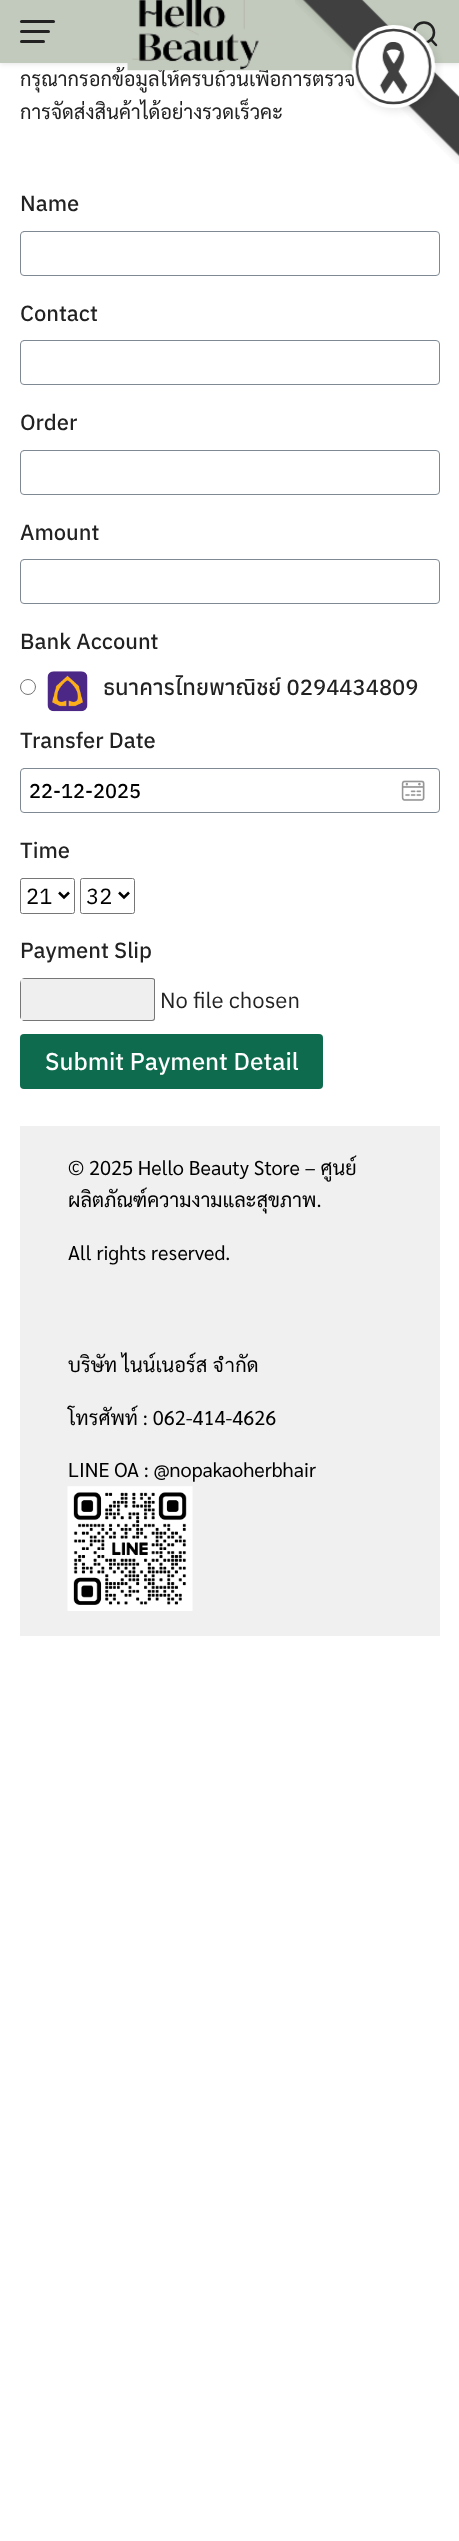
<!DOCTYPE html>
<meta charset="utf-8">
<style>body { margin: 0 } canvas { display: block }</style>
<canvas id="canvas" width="459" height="2541"></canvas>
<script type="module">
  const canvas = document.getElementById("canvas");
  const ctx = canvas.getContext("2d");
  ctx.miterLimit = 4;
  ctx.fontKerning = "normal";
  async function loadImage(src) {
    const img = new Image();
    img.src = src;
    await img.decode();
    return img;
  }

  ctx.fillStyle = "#ffffff";
  ctx.fillRect(0, 0, 459, 2541);
  ctx.fillStyle = "rgba(0, 0, 0, 0.1)";
  ctx.filter = "blur(2.5px)";
  ctx.beginPath();
  ctx.rect(0, 1, 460, 63);
  ctx.fill();
  ctx.filter = "none";
  ctx.font = "20px Sarabun";
  ctx.fillStyle = "#222222";
  ctx.fillText("กรุณากรอกข้อมูลให้ครบถ้วนเพื่อการตรวจ", 20, 86);
  ctx.fillStyle = "#c2cabd";
  ctx.fillRect(0, 0, 459, 63);
  ctx.drawImage(await loadImage("img2.png"), 127, 0, 229, 71);
  ctx.beginPath();
  ctx.arc(424, 32.5, 10, 0, Math.PI * 2);
  ctx.strokeStyle = "#222222";
  ctx.lineWidth = 2.5;
  ctx.stroke();
  ctx.beginPath();
  ctx.moveTo(436, 45);
  ctx.lineTo(431, 39.5);
  ctx.lineCap = "round";
  ctx.lineJoin = "round";
  ctx.stroke();
  ctx.drawImage(await loadImage("img1.png"), 295, 0, 164, 164);
  ctx.fillStyle = "#222222";
  ctx.beginPath();
  ctx.roundRect(20, 30, 30, 3, 1.5);
  ctx.fill();
  ctx.beginPath();
  ctx.roundRect(20, 20, 35, 3, 1.5);
  ctx.fill();
  ctx.beginPath();
  ctx.roundRect(20, 40, 25, 3, 1.5);
  ctx.fill();
  ctx.fillText("การจัดส่งสินค้าได้อย่างรวดเร็วคะ", 20, 119);
  ctx.font = "500 22px Anuphan";
  ctx.fillText("Name", 20, 211);
  ctx.beginPath();
  ctx.roundRect(20.5, 231.5, 419, 44, 3.5);
  ctx.strokeStyle = "#7e8993";
  ctx.lineWidth = 1;
  ctx.lineJoin = "miter";
  ctx.stroke();
  ctx.fillText("Contact", 20, 321);
  ctx.beginPath();
  ctx.roundRect(20.5, 340.5, 419, 44, 3.5);
  ctx.stroke();
  ctx.fillText("Order", 20, 430);
  ctx.beginPath();
  ctx.roundRect(20.5, 450.5, 419, 44, 3.5);
  ctx.stroke();
  ctx.fillText("Amount", 20, 540);
  ctx.beginPath();
  ctx.roundRect(20.5, 559.5, 419, 44, 3.5);
  ctx.stroke();
  ctx.fillText("Bank Account", 20, 649);
  ctx.beginPath();
  ctx.arc(28, 687, 7.5, 0, Math.PI * 2);
  ctx.strokeStyle = "#767676";
  ctx.stroke();
  ctx.drawImage(await loadImage("img3.png"), 47, 671, 41, 41);
  ctx.fillText("ธนาคารไทยพาณิชย์ 0294434809", 103, 695);
  ctx.fillText("Transfer Date", 20, 748);
  ctx.drawImage(await loadImage("img4.png"), 401, 780, 24, 21);
  ctx.beginPath();
  ctx.roundRect(20.5, 768.5, 419, 44, 3.5);
  ctx.strokeStyle = "#7e8993";
  ctx.stroke();
  ctx.font = "500 20px Anuphan";
  ctx.fillStyle = "#000000";
  ctx.fillText("22-12-2025", 29, 798);
  ctx.font = "500 22px Anuphan";
  ctx.fillStyle = "#222222";
  ctx.fillText("Time", 20, 858);
  ctx.beginPath();
  ctx.roundRect(20.5, 878.5, 54, 35, 2);
  ctx.strokeStyle = "#767676";
  ctx.stroke();
  ctx.beginPath();
  ctx.moveTo(59, 892.5);
  ctx.lineTo(64, 897.5);
  ctx.lineTo(69, 892.5);
  ctx.strokeStyle = "#000000";
  ctx.lineWidth = 2.5;
  ctx.lineCap = "butt";
  ctx.stroke();
  ctx.font = "22px Anuphan";
  ctx.fillStyle = "#000000";
  ctx.fillText("21", 26, 904);
  ctx.beginPath();
  ctx.roundRect(80.5, 878.5, 54, 35, 2);
  ctx.strokeStyle = "#767676";
  ctx.lineWidth = 1;
  ctx.stroke();
  ctx.beginPath();
  ctx.moveTo(119, 892.5);
  ctx.lineTo(124, 897.5);
  ctx.lineTo(129, 892.5);
  ctx.strokeStyle = "#000000";
  ctx.lineWidth = 2.5;
  ctx.stroke();
  ctx.fillText("32", 86, 904);
  ctx.font = "500 22px Anuphan";
  ctx.fillStyle = "#222222";
  ctx.fillText("Payment Slip", 20, 958);
  ctx.fillStyle = "#efefef";
  ctx.beginPath();
  ctx.roundRect(20, 978, 135, 43, [5, 2.5, 2.5, 5]);
  ctx.fill();
  ctx.fillStyle = "#767676";
  ctx.beginPath();
  ctx.moveTo(20, 983);
  ctx.lineTo(20, 1016);
  ctx.bezierCurveTo(20, 1017, 20, 1018, 21, 1019);
  ctx.lineTo(21, 980);
  ctx.closePath();
  ctx.moveTo(22, 979);
  ctx.lineTo(152, 979);
  ctx.bezierCurveTo(153, 979, 154, 980, 154, 980);
  ctx.lineTo(154, 1018);
  ctx.bezierCurveTo(154, 1019, 153, 1020, 152, 1020);
  ctx.lineTo(22, 1020);
  ctx.bezierCurveTo(23, 1021, 24, 1021, 25, 1021);
  ctx.lineTo(152, 1021);
  ctx.bezierCurveTo(154, 1021, 155, 1020, 155, 1018);
  ctx.lineTo(155, 980);
  ctx.bezierCurveTo(155, 979, 154, 978, 152, 978);
  ctx.lineTo(25, 978);
  ctx.bezierCurveTo(24, 978, 23, 978, 22, 979);
  ctx.closePath();
  ctx.fill("evenodd");
  ctx.font = "22px Anuphan";
  ctx.fillStyle = "#222222";
  ctx.fillText("No file chosen", 160, 1008);
  ctx.fillStyle = "#0f6b4e";
  ctx.beginPath();
  ctx.roundRect(20, 1034, 303, 55, 4);
  ctx.fill();
  ctx.font = "500 24.25px Anuphan";
  ctx.fillStyle = "#ffffff";
  ctx.fillText("Submit Payment Detail", 45, 1070);
  ctx.fillStyle = "#f0f0f1";
  ctx.fillRect(20, 1126, 420, 510);
  ctx.font = "20px Sarabun";
  ctx.fillStyle = "#000000";
  ctx.fillText("© 2025 Hello Beauty Store – ศูนย์", 68, 1175);
  ctx.fillText("ผลิตภัณฑ์ความงามและสุขภาพ.", 68, 1207);
  ctx.fillText("All rights reserved.", 68, 1260);
  ctx.fillText("บริษัท ไนน์เนอร์ส จำกัด", 68, 1372);
  ctx.fillText("โทรศัพท์ : 062-414-4626", 68, 1425);
  ctx.fillText("LINE OA : @nopakaoherbhair", 68, 1477);
  ctx.drawImage(await loadImage("img5.png"), 67, 1486, 126, 125);
</script>
